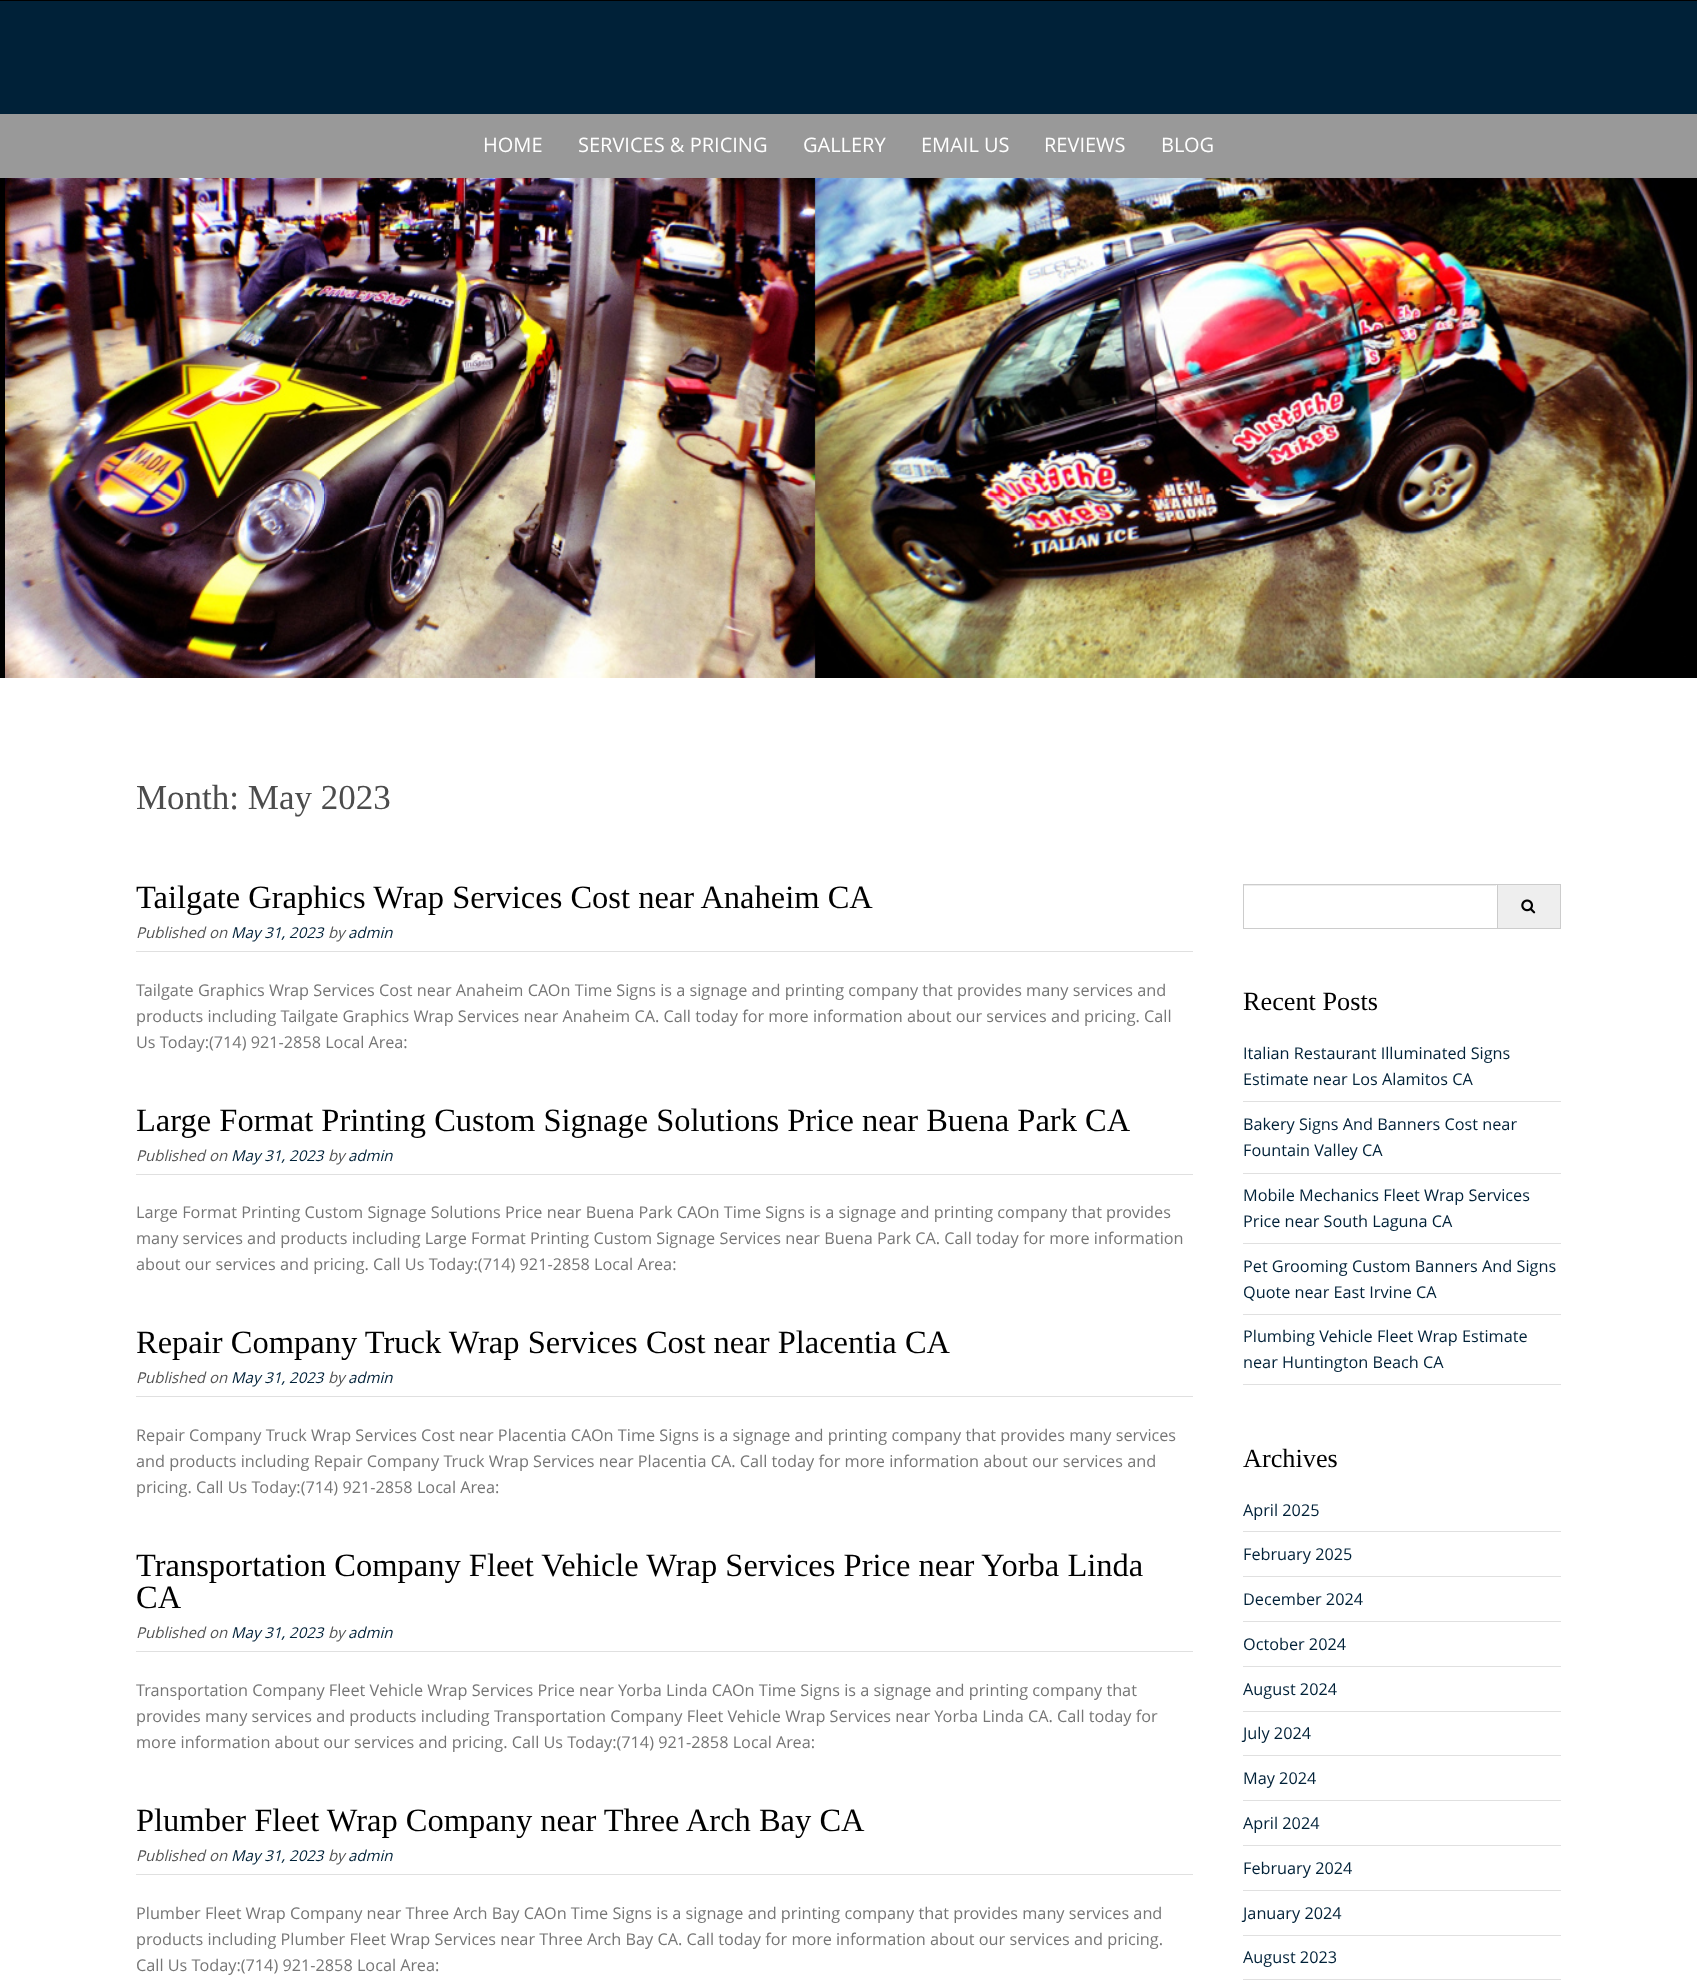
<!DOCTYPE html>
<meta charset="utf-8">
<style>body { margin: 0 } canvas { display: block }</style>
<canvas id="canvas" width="1697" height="1985"></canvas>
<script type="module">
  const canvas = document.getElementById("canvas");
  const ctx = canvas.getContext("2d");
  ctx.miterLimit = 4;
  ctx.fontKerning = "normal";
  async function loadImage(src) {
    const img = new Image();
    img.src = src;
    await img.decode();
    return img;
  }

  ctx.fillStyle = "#000000";
  ctx.fillRect(0, 0, 1697, 1985);
  ctx.fillStyle = "#002138";
  ctx.fillRect(0, 1, 1697, 113);
  ctx.fillStyle = "#999999";
  ctx.fillRect(0, 114, 1697, 64);
  ctx.font = "20px Open Sans";
  ctx.fillStyle = "#ffffff";
  ctx.fillText("HOME", 483, 152);
  ctx.fillText("SERVICES & PRICING", 578, 152);
  ctx.fillText("GALLERY", 803, 152);
  ctx.fillText("EMAIL US", 921, 152);
  ctx.fillText("REVIEWS", 1044, 152);
  ctx.fillText("BLOG", 1161, 152);
  ctx.drawImage(await loadImage("img1.png"), 5, 178, 1688, 500);
  ctx.fillRect(0, 678, 1697, 1307);
  ctx.font = "35px Liberation Serif";
  ctx.fillStyle = "#4c4c4c";
  ctx.fillText("Month: May 2023", 136, 809);
  ctx.fillStyle = "#e0e0e0";
  ctx.fillRect(136, 951, 1057, 1);
  ctx.font = "32.5px Liberation Serif";
  ctx.fillStyle = "#000000";
  ctx.fillText("Tailgate Graphics Wrap Services Cost near Anaheim CA", 136, 908);
  ctx.font = "italic 15px Open Sans";
  ctx.fillStyle = "#545454";
  ctx.fillText("Published on", 136, 938);
  ctx.fillStyle = "#002138";
  ctx.fillText("May 31, 2023", 231, 938);
  ctx.fillStyle = "#545454";
  ctx.fillText("by", 328, 938);
  ctx.fillStyle = "#002138";
  ctx.fillText("admin", 348, 938);
  ctx.font = "16.25px Open Sans";
  ctx.fillStyle = "#767676";
  ctx.fillText("Tailgate Graphics Wrap Services Cost near Anaheim CAOn Time Signs is a signage and printing company that provides many services and", 136, 996);
  ctx.fillText("products including Tailgate Graphics Wrap Services near Anaheim CA. Call today for more information about our services and pricing. Call", 136, 1022);
  ctx.fillText("Us Today:(714) 921-2858 Local Area:", 136, 1048);
  ctx.fillStyle = "#e0e0e0";
  ctx.fillRect(136, 1174, 1057, 1);
  ctx.font = "32.5px Liberation Serif";
  ctx.fillStyle = "#000000";
  ctx.fillText("Large Format Printing Custom Signage Solutions Price near Buena Park CA", 136, 1131);
  ctx.font = "italic 15px Open Sans";
  ctx.fillStyle = "#545454";
  ctx.fillText("Published on", 136, 1161);
  ctx.fillStyle = "#002138";
  ctx.fillText("May 31, 2023", 231, 1161);
  ctx.fillStyle = "#545454";
  ctx.fillText("by", 328, 1161);
  ctx.fillStyle = "#002138";
  ctx.fillText("admin", 348, 1161);
  ctx.font = "16.25px Open Sans";
  ctx.fillStyle = "#767676";
  ctx.fillText("Large Format Printing Custom Signage Solutions Price near Buena Park CAOn Time Signs is a signage and printing company that provides", 136, 1218);
  ctx.fillText("many services and products including Large Format Printing Custom Signage Services near Buena Park CA. Call today for more information", 136, 1244);
  ctx.fillText("about our services and pricing. Call Us Today:(714) 921-2858 Local Area:", 136, 1270);
  ctx.fillStyle = "#e0e0e0";
  ctx.fillRect(136, 1396, 1057, 1);
  ctx.font = "32.5px Liberation Serif";
  ctx.fillStyle = "#000000";
  ctx.fillText("Repair Company Truck Wrap Services Cost near Placentia CA", 136, 1353);
  ctx.font = "italic 15px Open Sans";
  ctx.fillStyle = "#545454";
  ctx.fillText("Published on", 136, 1383);
  ctx.fillStyle = "#002138";
  ctx.fillText("May 31, 2023", 231, 1383);
  ctx.fillStyle = "#545454";
  ctx.fillText("by", 328, 1383);
  ctx.fillStyle = "#002138";
  ctx.fillText("admin", 348, 1383);
  ctx.font = "16.25px Open Sans";
  ctx.fillStyle = "#767676";
  ctx.fillText("Repair Company Truck Wrap Services Cost near Placentia CAOn Time Signs is a signage and printing company that provides many services", 136, 1441);
  ctx.fillText("and products including Repair Company Truck Wrap Services near Placentia CA. Call today for more information about our services and", 136, 1467);
  ctx.fillText("pricing. Call Us Today:(714) 921-2858 Local Area:", 136, 1493);
  ctx.fillStyle = "#e0e0e0";
  ctx.fillRect(136, 1651, 1057, 1);
  ctx.font = "32.5px Liberation Serif";
  ctx.fillStyle = "#000000";
  ctx.fillText("Transportation Company Fleet Vehicle Wrap Services Price near Yorba Linda", 136, 1576);
  ctx.fillText("CA", 136, 1608);
  ctx.font = "italic 15px Open Sans";
  ctx.fillStyle = "#545454";
  ctx.fillText("Published on", 136, 1638);
  ctx.fillStyle = "#002138";
  ctx.fillText("May 31, 2023", 231, 1638);
  ctx.fillStyle = "#545454";
  ctx.fillText("by", 328, 1638);
  ctx.fillStyle = "#002138";
  ctx.fillText("admin", 348, 1638);
  ctx.font = "16.25px Open Sans";
  ctx.fillStyle = "#767676";
  ctx.fillText("Transportation Company Fleet Vehicle Wrap Services Price near Yorba Linda CAOn Time Signs is a signage and printing company that", 136, 1696);
  ctx.fillText("provides many services and products including Transportation Company Fleet Vehicle Wrap Services near Yorba Linda CA. Call today for", 136, 1722);
  ctx.fillText("more information about our services and pricing. Call Us Today:(714) 921-2858 Local Area:", 136, 1748);
  ctx.fillStyle = "#e0e0e0";
  ctx.fillRect(136, 1874, 1057, 1);
  ctx.font = "32.5px Liberation Serif";
  ctx.fillStyle = "#000000";
  ctx.fillText("Plumber Fleet Wrap Company near Three Arch Bay CA", 136, 1831);
  ctx.font = "italic 15px Open Sans";
  ctx.fillStyle = "#545454";
  ctx.fillText("Published on", 136, 1861);
  ctx.fillStyle = "#002138";
  ctx.fillText("May 31, 2023", 231, 1861);
  ctx.fillStyle = "#545454";
  ctx.fillText("by", 328, 1861);
  ctx.fillStyle = "#002138";
  ctx.fillText("admin", 348, 1861);
  ctx.font = "16.25px Open Sans";
  ctx.fillStyle = "#767676";
  ctx.fillText("Plumber Fleet Wrap Company near Three Arch Bay CAOn Time Signs is a signage and printing company that provides many services and", 136, 1919);
  ctx.fillText("products including Plumber Fleet Wrap Services near Three Arch Bay CA. Call today for more information about our services and pricing.", 136, 1945);
  ctx.fillText("Call Us Today:(714) 921-2858 Local Area:", 136, 1971);
  ctx.fillStyle = "#eeeeee";
  ctx.fillRect(1498, 885, 62, 43);
  ctx.strokeStyle = "#cccccc";
  ctx.strokeRect(1495.5, 884.5, 65, 44);
  ctx.fillStyle = "#ffffff";
  ctx.fillRect(1495, 885, 1, 43);
  ctx.fillStyle = "#ececec";
  ctx.fillRect(1244, 885, 252, 1);
  ctx.strokeRect(1243.5, 884.5, 254, 44);
  ctx.drawImage(await loadImage("img2.png"), 1521, 899, 15, 15);
  ctx.font = "26.25px Liberation Serif";
  ctx.fillStyle = "#000000";
  ctx.fillText("Recent Posts", 1243, 1010);
  ctx.fillStyle = "#e0e0e0";
  ctx.fillRect(1243, 1101, 318, 1);
  ctx.font = "16.25px Open Sans";
  ctx.fillStyle = "#002138";
  ctx.fillText("Italian Restaurant Illuminated Signs", 1243, 1059);
  ctx.fillText("Estimate near Los Alamitos CA", 1243, 1085);
  ctx.fillStyle = "#e0e0e0";
  ctx.fillRect(1243, 1173, 318, 1);
  ctx.fillStyle = "#002138";
  ctx.fillText("Bakery Signs And Banners Cost near", 1243, 1130);
  ctx.fillText("Fountain Valley CA", 1243, 1156);
  ctx.fillStyle = "#e0e0e0";
  ctx.fillRect(1243, 1243, 318, 1);
  ctx.fillStyle = "#002138";
  ctx.fillText("Mobile Mechanics Fleet Wrap Services", 1243, 1201);
  ctx.fillText("Price near South Laguna CA", 1243, 1227);
  ctx.fillStyle = "#e0e0e0";
  ctx.fillRect(1243, 1314, 318, 1);
  ctx.fillStyle = "#002138";
  ctx.fillText("Pet Grooming Custom Banners And Signs", 1243, 1272);
  ctx.fillText("Quote near East Irvine CA", 1243, 1298);
  ctx.fillStyle = "#e0e0e0";
  ctx.fillRect(1243, 1384, 318, 1);
  ctx.fillStyle = "#002138";
  ctx.fillText("Plumbing Vehicle Fleet Wrap Estimate", 1243, 1342);
  ctx.fillText("near Huntington Beach CA", 1243, 1368);
  ctx.font = "26.25px Liberation Serif";
  ctx.fillStyle = "#000000";
  ctx.fillText("Archives", 1243, 1467);
  ctx.fillStyle = "#e0e0e0";
  ctx.fillRect(1243, 1531, 318, 1);
  ctx.font = "16.25px Open Sans";
  ctx.fillStyle = "#002138";
  ctx.fillText("April 2025", 1243, 1516);
  ctx.fillStyle = "#e0e0e0";
  ctx.fillRect(1243, 1576, 318, 1);
  ctx.fillStyle = "#002138";
  ctx.fillText("February 2025", 1243, 1560);
  ctx.fillStyle = "#e0e0e0";
  ctx.fillRect(1243, 1621, 318, 1);
  ctx.fillStyle = "#002138";
  ctx.fillText("December 2024", 1243, 1605);
  ctx.fillStyle = "#e0e0e0";
  ctx.fillRect(1243, 1666, 318, 1);
  ctx.fillStyle = "#002138";
  ctx.fillText("October 2024", 1243, 1650);
  ctx.fillStyle = "#e0e0e0";
  ctx.fillRect(1243, 1711, 318, 1);
  ctx.fillStyle = "#002138";
  ctx.fillText("August 2024", 1243, 1695);
  ctx.fillStyle = "#e0e0e0";
  ctx.fillRect(1243, 1755, 318, 1);
  ctx.fillStyle = "#002138";
  ctx.fillText("July 2024", 1243, 1739);
  ctx.fillStyle = "#e0e0e0";
  ctx.fillRect(1243, 1800, 318, 1);
  ctx.fillStyle = "#002138";
  ctx.fillText("May 2024", 1243, 1784);
  ctx.fillStyle = "#e0e0e0";
  ctx.fillRect(1243, 1845, 318, 1);
  ctx.fillStyle = "#002138";
  ctx.fillText("April 2024", 1243, 1829);
  ctx.fillStyle = "#e0e0e0";
  ctx.fillRect(1243, 1890, 318, 1);
  ctx.fillStyle = "#002138";
  ctx.fillText("February 2024", 1243, 1874);
  ctx.fillStyle = "#e0e0e0";
  ctx.fillRect(1243, 1935, 318, 1);
  ctx.fillStyle = "#002138";
  ctx.fillText("January 2024", 1243, 1919);
  ctx.fillStyle = "#e0e0e0";
  ctx.fillRect(1243, 1979, 318, 1);
  ctx.fillStyle = "#002138";
  ctx.fillText("August 2023", 1243, 1963);
</script>
